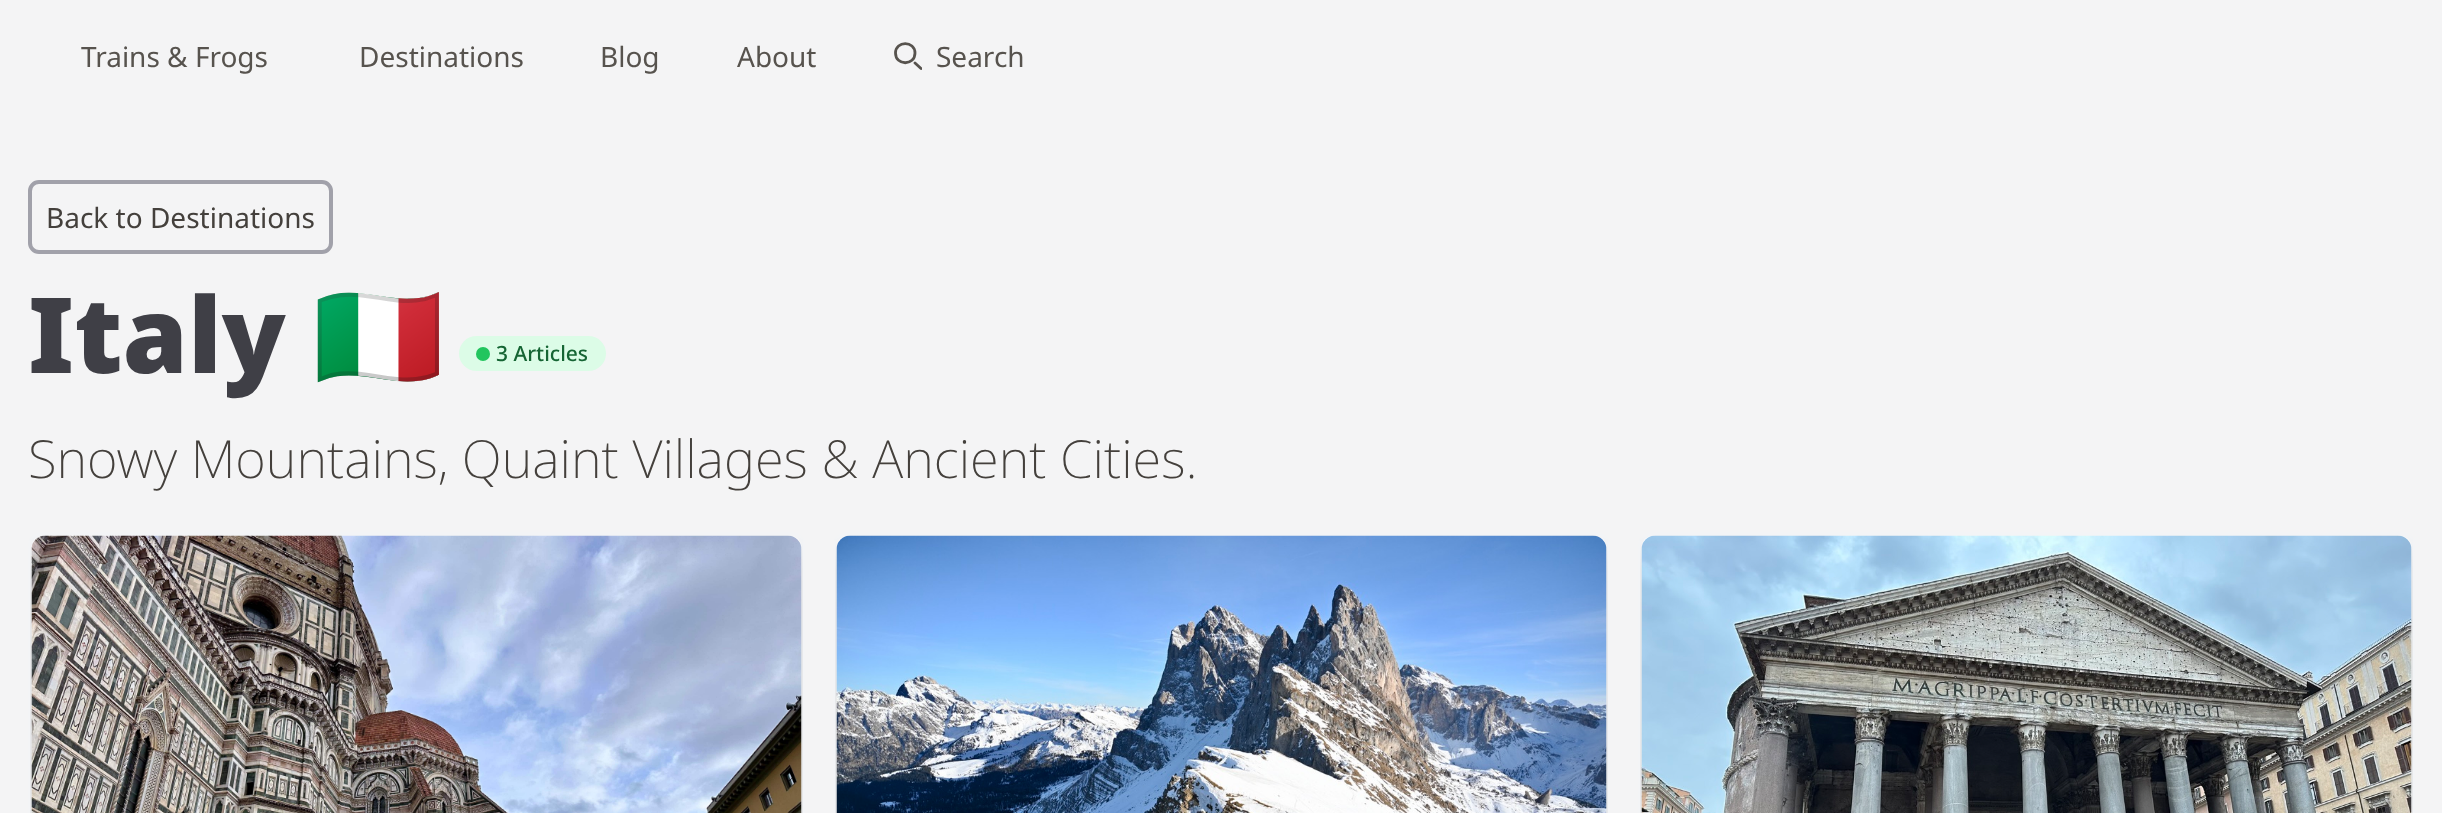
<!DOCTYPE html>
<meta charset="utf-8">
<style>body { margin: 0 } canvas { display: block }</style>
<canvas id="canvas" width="2442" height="813"></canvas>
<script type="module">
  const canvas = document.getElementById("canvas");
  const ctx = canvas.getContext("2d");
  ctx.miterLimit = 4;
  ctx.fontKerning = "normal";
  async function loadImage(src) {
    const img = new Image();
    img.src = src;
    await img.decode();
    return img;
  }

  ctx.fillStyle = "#f4f4f5";
  ctx.fillRect(0, 0, 2442, 813);
  ctx.font = "28px Noto Sans";
  ctx.fillStyle = "#57534e";
  ctx.fillText("Trains & Frogs", 81, 67);
  ctx.fillText("Destinations", 359, 67);
  ctx.fillText("Blog", 600, 67);
  ctx.fillText("About", 737, 67);
  ctx.save();
  ctx.beginPath();
  ctx.rect(894, 42, 28, 28);
  ctx.clip();
  ctx.beginPath();
  ctx.moveTo(921, 68.5);
  ctx.lineTo(915, 63);
  ctx.moveTo(915, 53);
  ctx.bezierCurveTo(915, 66, 895.5, 66, 895.5, 53);
  ctx.bezierCurveTo(895.5, 40.5, 915, 40.5, 915, 53);
  ctx.closePath();
  ctx.strokeStyle = "#57534e";
  ctx.lineWidth = 2.8;
  ctx.lineCap = "round";
  ctx.lineJoin = "round";
  ctx.stroke();
  ctx.restore();
  ctx.fillText("Search", 936, 67);
  ctx.beginPath();
  ctx.roundRect(30, 182, 301, 70, 9);
  ctx.strokeStyle = "#a1a1aa";
  ctx.lineWidth = 4;
  ctx.stroke();
  ctx.fillStyle = "#44403c";
  ctx.fillText("Back to Destinations", 46, 228);
  ctx.font = "900 105px Noto Sans";
  ctx.fillStyle = "#3f3f46";
  ctx.fillText("Italy", 28, 373);
  ctx.font = "bold 105px Noto Color Emoji";
  ctx.fillText("🇮🇹", 313, 373);
  ctx.fillStyle = "#dcfce7";
  ctx.beginPath();
  ctx.roundRect(459, 336, 147, 35, 17.5);
  ctx.fill();
  ctx.fillStyle = "#22c55e";
  ctx.beginPath();
  ctx.arc(483, 354, 7, 0, Math.PI * 2);
  ctx.fill();
  ctx.font = "500 21px Noto Sans";
  ctx.fillStyle = "#166534";
  ctx.fillText("3 Articles", 496, 361);
  ctx.font = "200 52.5px Noto Sans";
  ctx.fillStyle = "#44403c";
  ctx.fillText("Snowy Mountains, Quaint Villages & Ancient Cities.", 28, 478);
  ctx.fillStyle = "#ffffff";
  ctx.beginPath();
  ctx.roundRect(30, 534, 773, 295, 12);
  ctx.fill();
  ctx.strokeStyle = "#f3f4f6";
  ctx.stroke();
  ctx.drawImage(await loadImage("img1.png"), 30, 535, 773, 278);
  ctx.beginPath();
  ctx.roundRect(835, 534, 773, 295, 12);
  ctx.fill();
  ctx.stroke();
  ctx.drawImage(await loadImage("img2.png"), 835, 535, 773, 278);
  ctx.beginPath();
  ctx.roundRect(1640, 534, 773, 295, 12);
  ctx.fill();
  ctx.stroke();
  ctx.drawImage(await loadImage("img3.png"), 1640, 535, 773, 278);
</script>
